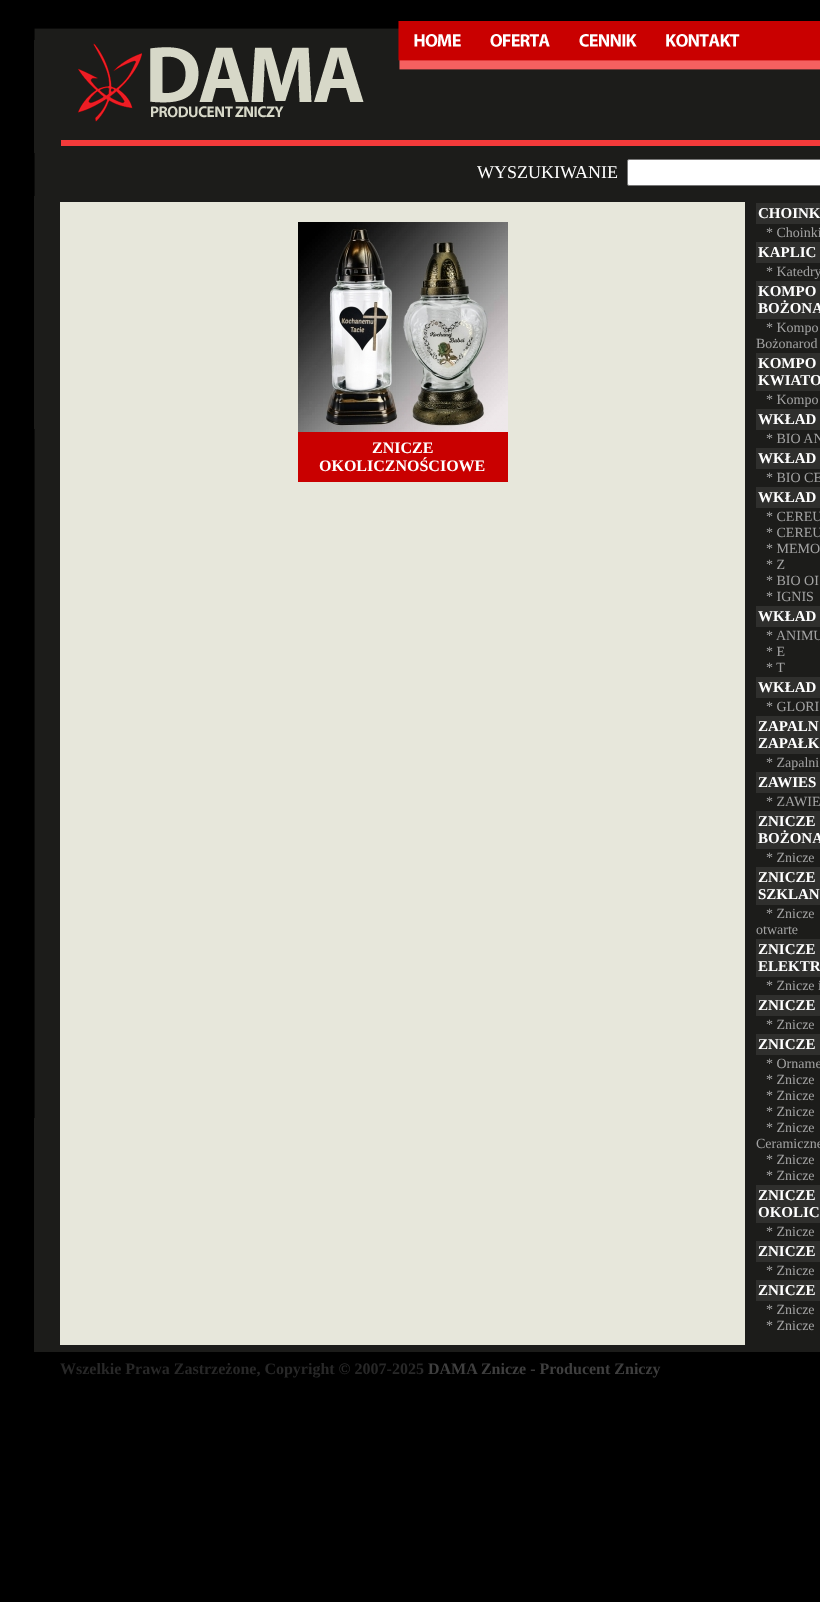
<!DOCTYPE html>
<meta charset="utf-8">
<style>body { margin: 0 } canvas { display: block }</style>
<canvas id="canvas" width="820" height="1602"></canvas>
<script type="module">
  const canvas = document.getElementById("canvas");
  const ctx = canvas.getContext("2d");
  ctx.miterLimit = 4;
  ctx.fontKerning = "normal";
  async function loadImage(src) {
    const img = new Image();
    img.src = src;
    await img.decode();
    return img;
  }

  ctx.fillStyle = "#000000";
  ctx.fillRect(0, 0, 820, 1602);
  ctx.drawImage(await loadImage("img1.png"), 34, 21, 373, 19);
  ctx.drawImage(await loadImage("img2.png"), 407, 21, 62, 47);
  ctx.drawImage(await loadImage("img3.png"), 469, 21, 15, 125);
  ctx.drawImage(await loadImage("img4.png"), 484, 21, 71, 47);
  ctx.drawImage(await loadImage("img3.png"), 555, 21, 15, 125);
  ctx.drawImage(await loadImage("img5.png"), 570, 21, 76, 47);
  ctx.drawImage(await loadImage("img6.png"), 646, 21, 8, 125);
  ctx.drawImage(await loadImage("img7.png"), 654, 21, 100, 47);
  ctx.drawImage(await loadImage("img8.png"), 754, 21, 66, 125);
  ctx.fillStyle = "#1c1c1a";
  ctx.fillRect(34, 40, 27, 106);
  ctx.drawImage(await loadImage("img9.png"), 61, 40, 314, 100);
  ctx.drawImage(await loadImage("img10.png"), 375, 40, 32, 106);
  ctx.drawImage(await loadImage("img11.png"), 407, 68, 62, 78);
  ctx.drawImage(await loadImage("img12.png"), 484, 68, 71, 78);
  ctx.drawImage(await loadImage("img13.png"), 570, 68, 76, 78);
  ctx.drawImage(await loadImage("img14.png"), 654, 68, 100, 78);
  ctx.fillStyle = "#f33a3a";
  ctx.fillRect(61, 140, 314, 6);
  ctx.fillStyle = "#1c1c1a";
  ctx.fillRect(34, 146, 786, 56);
  ctx.fillStyle = "#0c0c0b";
  ctx.fillRect(34, 153, 1, 43);
  ctx.font = "18px Liberation Serif";
  ctx.fillStyle = "#ffffff";
  ctx.fillText("WYSZUKIWANIE", 477, 178);
  ctx.beginPath();
  ctx.roundRect(627.5, 159.5, 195, 26, 1.5);
  ctx.fill();
  ctx.strokeStyle = "#767676";
  ctx.stroke();
  ctx.fillStyle = "#1c1c1a";
  ctx.fillRect(34, 202, 26, 1143);
  ctx.fillStyle = "#0c0c0b";
  ctx.fillRect(34, 429, 1, 689);
  ctx.fillStyle = "#1c1c1a";
  ctx.fillRect(745, 202, 75, 1143);
  ctx.fillStyle = "#e7e7db";
  ctx.fillRect(60, 202, 685, 1143);
  ctx.drawImage(await loadImage("img15.png"), 298, 222, 210, 210);
  ctx.fillStyle = "#c90000";
  ctx.fillRect(298, 432, 210, 50);
  ctx.font = "bold 16px Liberation Serif";
  ctx.fillStyle = "#ffffff";
  ctx.fillText("ZNICZE", 372, 453);
  ctx.fillText("OKOLICZNOŚCIOWE", 319, 471);
  ctx.fillStyle = "#2f2f2d";
  ctx.fillRect(756, 203, 64, 21);
  ctx.font = "bold 15px Liberation Serif";
  ctx.fillStyle = "#ffffff";
  ctx.fillText("CHOINK", 758, 218);
  ctx.font = "14px Liberation Serif";
  ctx.fillStyle = "#a3a3a3";
  ctx.fillText("* Choinki", 766, 237);
  ctx.fillStyle = "#2f2f2d";
  ctx.fillRect(756, 242, 64, 21);
  ctx.font = "bold 15px Liberation Serif";
  ctx.fillStyle = "#ffffff";
  ctx.fillText("KAPLIC", 758, 257);
  ctx.font = "14px Liberation Serif";
  ctx.fillStyle = "#a3a3a3";
  ctx.fillText("* Katedry", 766, 276);
  ctx.fillStyle = "#2f2f2d";
  ctx.fillRect(756, 281, 64, 38);
  ctx.font = "bold 15px Liberation Serif";
  ctx.fillStyle = "#ffffff";
  ctx.fillText("KOMPO", 758, 296);
  ctx.fillText("BOŻONA", 758, 313);
  ctx.font = "14px Liberation Serif";
  ctx.fillStyle = "#a3a3a3";
  ctx.fillText("* Kompo", 766, 332);
  ctx.fillText("Bożonarod", 756, 348);
  ctx.fillStyle = "#2f2f2d";
  ctx.fillRect(756, 353, 64, 38);
  ctx.font = "bold 15px Liberation Serif";
  ctx.fillStyle = "#ffffff";
  ctx.fillText("KOMPO", 758, 368);
  ctx.fillText("KWIATO", 758, 385);
  ctx.font = "14px Liberation Serif";
  ctx.fillStyle = "#a3a3a3";
  ctx.fillText("* Kompo", 766, 404);
  ctx.fillStyle = "#2f2f2d";
  ctx.fillRect(756, 409, 64, 21);
  ctx.font = "bold 15px Liberation Serif";
  ctx.fillStyle = "#ffffff";
  ctx.fillText("WKŁAD", 758, 424);
  ctx.font = "14px Liberation Serif";
  ctx.fillStyle = "#a3a3a3";
  ctx.fillText("* BIO AN", 766, 443);
  ctx.fillStyle = "#2f2f2d";
  ctx.fillRect(756, 448, 64, 21);
  ctx.font = "bold 15px Liberation Serif";
  ctx.fillStyle = "#ffffff";
  ctx.fillText("WKŁAD", 758, 463);
  ctx.font = "14px Liberation Serif";
  ctx.fillStyle = "#a3a3a3";
  ctx.fillText("* BIO CE", 766, 482);
  ctx.fillStyle = "#2f2f2d";
  ctx.fillRect(756, 487, 64, 21);
  ctx.font = "bold 15px Liberation Serif";
  ctx.fillStyle = "#ffffff";
  ctx.fillText("WKŁAD", 758, 502);
  ctx.font = "14px Liberation Serif";
  ctx.fillStyle = "#a3a3a3";
  ctx.fillText("* CEREU", 766, 521);
  ctx.fillText("* CEREU", 766, 537);
  ctx.fillText("* MEMO", 766, 553);
  ctx.fillText("* Z", 766, 569);
  ctx.fillText("* BIO OI", 766, 585);
  ctx.fillText("* IGNIS", 766, 601);
  ctx.fillStyle = "#2f2f2d";
  ctx.fillRect(756, 606, 64, 21);
  ctx.font = "bold 15px Liberation Serif";
  ctx.fillStyle = "#ffffff";
  ctx.fillText("WKŁAD", 758, 621);
  ctx.font = "14px Liberation Serif";
  ctx.fillStyle = "#a3a3a3";
  ctx.fillText("*", 766, 640);
  ctx.fillText("ANIMU", 776, 640);
  ctx.fillText("* E", 766, 656);
  ctx.fillText("* T", 766, 672);
  ctx.fillStyle = "#2f2f2d";
  ctx.fillRect(756, 677, 64, 21);
  ctx.font = "bold 15px Liberation Serif";
  ctx.fillStyle = "#ffffff";
  ctx.fillText("WKŁAD", 758, 692);
  ctx.font = "14px Liberation Serif";
  ctx.fillStyle = "#a3a3a3";
  ctx.fillText("* GLORI", 766, 711);
  ctx.fillStyle = "#2f2f2d";
  ctx.fillRect(756, 716, 64, 38);
  ctx.font = "bold 15px Liberation Serif";
  ctx.fillStyle = "#ffffff";
  ctx.fillText("ZAPALN", 758, 731);
  ctx.fillText("ZAPAŁK", 758, 748);
  ctx.font = "14px Liberation Serif";
  ctx.fillStyle = "#a3a3a3";
  ctx.fillText("* Zapalni", 766, 767);
  ctx.fillStyle = "#2f2f2d";
  ctx.fillRect(756, 772, 64, 21);
  ctx.font = "bold 15px Liberation Serif";
  ctx.fillStyle = "#ffffff";
  ctx.fillText("ZAWIES", 758, 787);
  ctx.font = "14px Liberation Serif";
  ctx.fillStyle = "#a3a3a3";
  ctx.fillText("* ZAWIE", 766, 806);
  ctx.fillStyle = "#2f2f2d";
  ctx.fillRect(756, 811, 64, 38);
  ctx.font = "bold 15px Liberation Serif";
  ctx.fillStyle = "#ffffff";
  ctx.fillText("ZNICZE", 758, 826);
  ctx.fillText("BOŻONA", 758, 843);
  ctx.font = "14px Liberation Serif";
  ctx.fillStyle = "#a3a3a3";
  ctx.fillText("* Znicze", 766, 862);
  ctx.fillStyle = "#2f2f2d";
  ctx.fillRect(756, 867, 64, 38);
  ctx.font = "bold 15px Liberation Serif";
  ctx.fillStyle = "#ffffff";
  ctx.fillText("ZNICZE", 758, 882);
  ctx.fillText("SZKLAN", 758, 899);
  ctx.font = "14px Liberation Serif";
  ctx.fillStyle = "#a3a3a3";
  ctx.fillText("* Znicze", 766, 918);
  ctx.fillText("otwarte", 756, 934);
  ctx.fillStyle = "#2f2f2d";
  ctx.fillRect(756, 939, 64, 38);
  ctx.font = "bold 15px Liberation Serif";
  ctx.fillStyle = "#ffffff";
  ctx.fillText("ZNICZE", 758, 954);
  ctx.fillText("ELEKTR", 758, 971);
  ctx.font = "14px Liberation Serif";
  ctx.fillStyle = "#a3a3a3";
  ctx.fillText("* Znicze i", 766, 990);
  ctx.fillStyle = "#2f2f2d";
  ctx.fillRect(756, 995, 64, 21);
  ctx.font = "bold 15px Liberation Serif";
  ctx.fillStyle = "#ffffff";
  ctx.fillText("ZNICZE", 758, 1010);
  ctx.font = "14px Liberation Serif";
  ctx.fillStyle = "#a3a3a3";
  ctx.fillText("* Znicze", 766, 1029);
  ctx.fillStyle = "#2f2f2d";
  ctx.fillRect(756, 1034, 64, 21);
  ctx.font = "bold 15px Liberation Serif";
  ctx.fillStyle = "#ffffff";
  ctx.fillText("ZNICZE", 758, 1049);
  ctx.font = "14px Liberation Serif";
  ctx.fillStyle = "#a3a3a3";
  ctx.fillText("* Orname", 766, 1068);
  ctx.fillText("* Znicze", 766, 1084);
  ctx.fillText("* Znicze", 766, 1100);
  ctx.fillText("* Znicze", 766, 1116);
  ctx.fillText("* Znicze", 766, 1132);
  ctx.fillText("Ceramiczne", 756, 1148);
  ctx.fillText("* Znicze", 766, 1164);
  ctx.fillText("* Znicze", 766, 1180);
  ctx.fillStyle = "#2f2f2d";
  ctx.fillRect(756, 1185, 64, 38);
  ctx.font = "bold 15px Liberation Serif";
  ctx.fillStyle = "#ffffff";
  ctx.fillText("ZNICZE", 758, 1200);
  ctx.fillText("OKOLIC", 758, 1217);
  ctx.font = "14px Liberation Serif";
  ctx.fillStyle = "#a3a3a3";
  ctx.fillText("* Znicze", 766, 1236);
  ctx.fillStyle = "#2f2f2d";
  ctx.fillRect(756, 1241, 64, 21);
  ctx.font = "bold 15px Liberation Serif";
  ctx.fillStyle = "#ffffff";
  ctx.fillText("ZNICZE", 758, 1256);
  ctx.font = "14px Liberation Serif";
  ctx.fillStyle = "#a3a3a3";
  ctx.fillText("* Znicze", 766, 1275);
  ctx.fillStyle = "#2f2f2d";
  ctx.fillRect(756, 1280, 64, 21);
  ctx.font = "bold 15px Liberation Serif";
  ctx.fillStyle = "#ffffff";
  ctx.fillText("ZNICZE", 758, 1295);
  ctx.font = "14px Liberation Serif";
  ctx.fillStyle = "#a3a3a3";
  ctx.fillText("* Znicze", 766, 1314);
  ctx.fillText("* Znicze", 766, 1330);
  ctx.fillStyle = "#1c1c1a";
  ctx.fillRect(34, 1345, 786, 7);
  ctx.font = "bold 16px Liberation Serif";
  ctx.fillStyle = "#282828";
  ctx.fillText("Wszelkie Prawa Zastrzeżone, Copyright © 2007-2025", 60, 1374);
  ctx.fillStyle = "#3f3f3f";
  ctx.fillText("DAMA Znicze - Producent Zniczy", 428, 1374);
</script>
